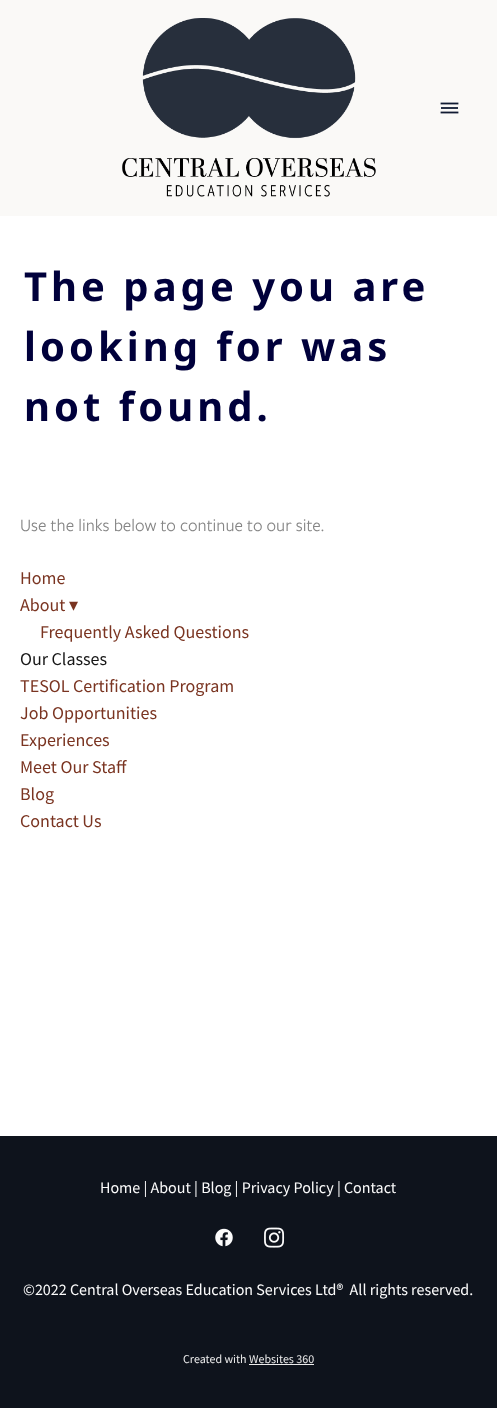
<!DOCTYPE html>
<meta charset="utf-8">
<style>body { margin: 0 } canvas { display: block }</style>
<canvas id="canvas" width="497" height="1408"></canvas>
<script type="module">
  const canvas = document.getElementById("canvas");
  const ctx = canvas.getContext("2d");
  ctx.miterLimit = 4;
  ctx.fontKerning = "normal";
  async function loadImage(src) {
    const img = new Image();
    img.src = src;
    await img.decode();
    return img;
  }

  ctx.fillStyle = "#ffffff";
  ctx.fillRect(0, 0, 497, 1408);
  ctx.fillStyle = "#faf9f7";
  ctx.fillRect(0, 0, 497, 216);
  ctx.drawImage(await loadImage("img1.png"), 122, 18, 254, 179);
  ctx.beginPath();
  ctx.moveTo(441.5, 103.5);
  ctx.lineTo(457.5, 103.5);
  ctx.strokeStyle = "#101b32";
  ctx.lineWidth = 1.8;
  ctx.lineCap = "square";
  ctx.stroke();
  ctx.fillStyle = "#273146";
  ctx.fillRect(441, 107, 17, 2);
  ctx.beginPath();
  ctx.moveTo(441.5, 112.5);
  ctx.lineTo(457.5, 112.5);
  ctx.stroke();
  ctx.letterSpacing = "4px";
  ctx.font = "bold 40px Noto Sans";
  ctx.fillStyle = "#00003b";
  ctx.fillText("The page you are", 24, 301);
  ctx.fillText("looking for was", 24, 361);
  ctx.fillText("not found.", 24, 421);
  ctx.letterSpacing = "0px";
  ctx.font = "18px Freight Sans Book";
  ctx.fillStyle = "#868686";
  ctx.fillText("Use the links below to continue to our site.", 20, 531);
  ctx.font = "18px Source Sans Pro";
  ctx.fillStyle = "#7a3421";
  ctx.fillText("Home", 20, 584);
  ctx.fillText("About", 20, 611);
  ctx.font = "18px DejaVu Sans";
  ctx.fillText("▾", 69, 611);
  ctx.font = "18px Source Sans Pro";
  ctx.fillText("Frequently Asked Questions", 40, 638);
  ctx.fillStyle = "#171717";
  ctx.fillText("Our Classes", 20, 665);
  ctx.fillStyle = "#7a3421";
  ctx.fillText("TESOL Certification Program", 20, 692);
  ctx.fillText("Job Opportunities", 20, 719);
  ctx.fillText("Experiences", 20, 746);
  ctx.fillText("Meet Our Staff", 20, 773);
  ctx.fillText("Blog", 20, 800);
  ctx.fillText("Contact Us", 20, 827);
  ctx.fillStyle = "#0e131c";
  ctx.fillRect(0, 1136, 497, 272);
  ctx.font = "16px Source Sans Pro";
  ctx.fillStyle = "#fbfbfb";
  ctx.fillText("Home | About | Blog | Privacy Policy | Contact", 100, 1193);
  ctx.drawImage(await loadImage("img2.png"), 215, 1228, 18, 19);
  ctx.drawImage(await loadImage("img3.png"), 264, 1227, 21, 21);
  ctx.fillText("©2022 Central Overseas Education Services Ltd®  All rights reserved.", 23, 1295);
  ctx.font = "12px Source Sans Pro";
  ctx.fillStyle = "#ebebeb";
  ctx.fillText("Created with Websites 360", 183, 1363);
  ctx.fillRect(249, 1364, 65, 1);
</script>
